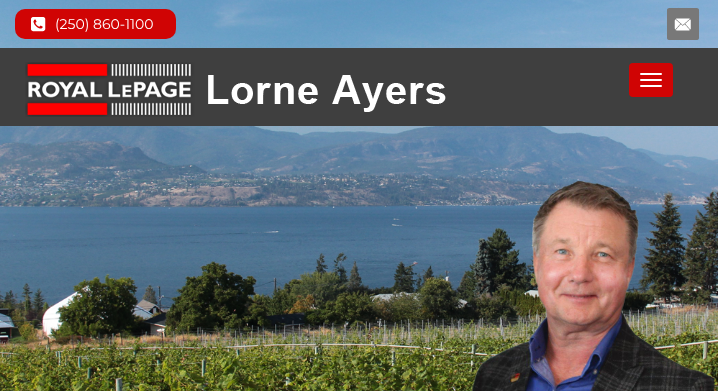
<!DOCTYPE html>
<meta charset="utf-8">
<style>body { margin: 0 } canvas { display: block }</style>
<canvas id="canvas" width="718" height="391"></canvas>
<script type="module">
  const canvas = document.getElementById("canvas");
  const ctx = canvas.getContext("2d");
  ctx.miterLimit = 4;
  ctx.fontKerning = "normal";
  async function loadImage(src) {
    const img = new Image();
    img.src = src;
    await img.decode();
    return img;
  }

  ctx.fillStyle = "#ffffff";
  ctx.fillRect(0, 0, 718, 391);
  ctx.drawImage(await loadImage("img1.png"), 0, 0, 718, 391);
  ctx.drawImage(await loadImage("img2.png"), 471, 180, 244, 211);
  ctx.fillStyle = "#d00404";
  ctx.beginPath();
  ctx.roundRect(15, 9, 161, 30, 10);
  ctx.fill();
  ctx.drawImage(await loadImage("img3.png"), 31, 17, 15, 15);
  ctx.font = "14px Montserrat";
  ctx.fillStyle = "#ffffff";
  ctx.fillText("(250) 860-1100", 55, 29);
  ctx.drawImage(await loadImage("img4.png"), 667, 8, 32, 32);
  ctx.fillStyle = "#3f3f3f";
  ctx.fillRect(0, 48, 718, 78);
  ctx.drawImage(await loadImage("img5.png"), 25, 62, 421, 55);
  ctx.fillStyle = "#d00404";
  ctx.beginPath();
  ctx.roundRect(629, 63, 44, 34, 4);
  ctx.fill();
  ctx.fillStyle = "#ffffff";
  ctx.beginPath();
  ctx.roundRect(640, 73, 22, 2, 1);
  ctx.fill();
  ctx.beginPath();
  ctx.roundRect(640, 79, 22, 2, 1);
  ctx.fill();
  ctx.beginPath();
  ctx.roundRect(640, 85, 22, 2, 1);
  ctx.fill();
</script>
